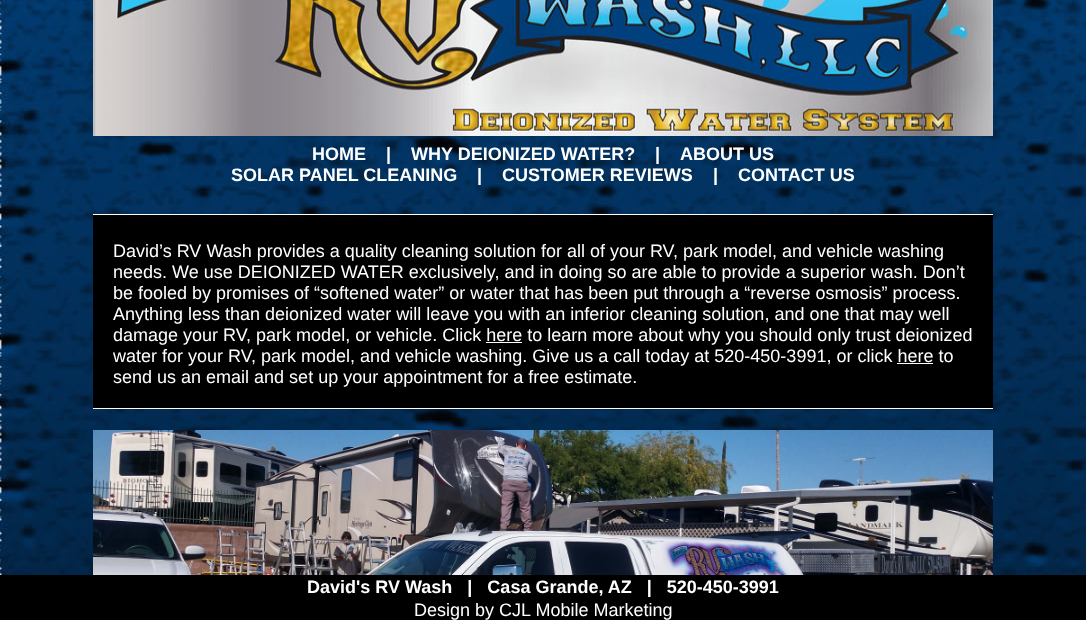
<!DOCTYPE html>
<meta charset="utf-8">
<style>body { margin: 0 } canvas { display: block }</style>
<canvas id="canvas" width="1086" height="620"></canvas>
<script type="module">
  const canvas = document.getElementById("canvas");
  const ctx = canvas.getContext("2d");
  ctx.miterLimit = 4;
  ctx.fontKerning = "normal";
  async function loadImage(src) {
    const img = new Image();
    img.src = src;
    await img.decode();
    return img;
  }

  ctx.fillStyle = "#ffffff";
  ctx.fillRect(0, 0, 1086, 620);
  ctx.drawImage(await loadImage("img1.png"), 0, 0, 1086, 575);
  ctx.drawImage(await loadImage("img2.png"), 93, 0, 900, 136);
  ctx.font = "bold 18px Liberation Sans";
  ctx.fillText("HOME    |", 312, 160);
  ctx.fillText("WHY DEIONIZED WATER?", 411, 160);
  ctx.fillText("|", 655, 160);
  ctx.fillText("ABOUT US", 680, 160);
  ctx.fillText("SOLAR PANEL CLEANING", 231, 181);
  ctx.fillText("|    CUSTOMER REVIEWS", 477, 181);
  ctx.fillText("|", 713, 181);
  ctx.fillText("CONTACT US", 738, 181);
  ctx.fillStyle = "#000000";
  ctx.fillRect(93, 215, 900, 193);
  ctx.fillStyle = "#ffffff";
  ctx.fillRect(93, 214, 900, 1);
  ctx.fillRect(93, 408, 900, 1);
  ctx.font = "18px Liberation Sans";
  ctx.fillText("David’s RV Wash provides a quality cleaning solution for all of your RV, park model, and vehicle washing", 113, 257);
  ctx.fillText("needs. We use DEIONIZED WATER exclusively, and in doing so are able to provide a superior wash. Don’t", 113, 278);
  ctx.fillText("be fooled by promises of “softened water” or water that has been put through a “reverse osmosis” process.", 113, 299);
  ctx.fillText("Anything less than deionized water will leave you with an inferior cleaning solution, and one that may well", 113, 320);
  ctx.fillText("damage your RV, park model, or vehicle. Click here to learn more about why you should only trust deionized", 113, 341);
  ctx.fillRect(486, 342, 36, 1);
  ctx.fillText("water for your RV, park model, and vehicle washing. Give us a call today at 520-450-3991, or click here to", 113, 362);
  ctx.fillRect(897, 363, 36, 1);
  ctx.fillText("send us an email and set up your appointment for a free estimate.", 113, 383);
  ctx.drawImage(await loadImage("img3.png"), 93, 430, 900, 145);
  ctx.fillStyle = "#000000";
  ctx.fillRect(0, 575, 1086, 45);
  ctx.font = "bold 18px Liberation Sans";
  ctx.fillStyle = "#ffffff";
  ctx.fillText("David's RV Wash   |   Casa Grande, AZ   |   520-450-3991", 307, 593);
  ctx.font = "18px Liberation Sans";
  ctx.fillText("Design by CJL Mobile Marketing", 414, 616);
</script>
